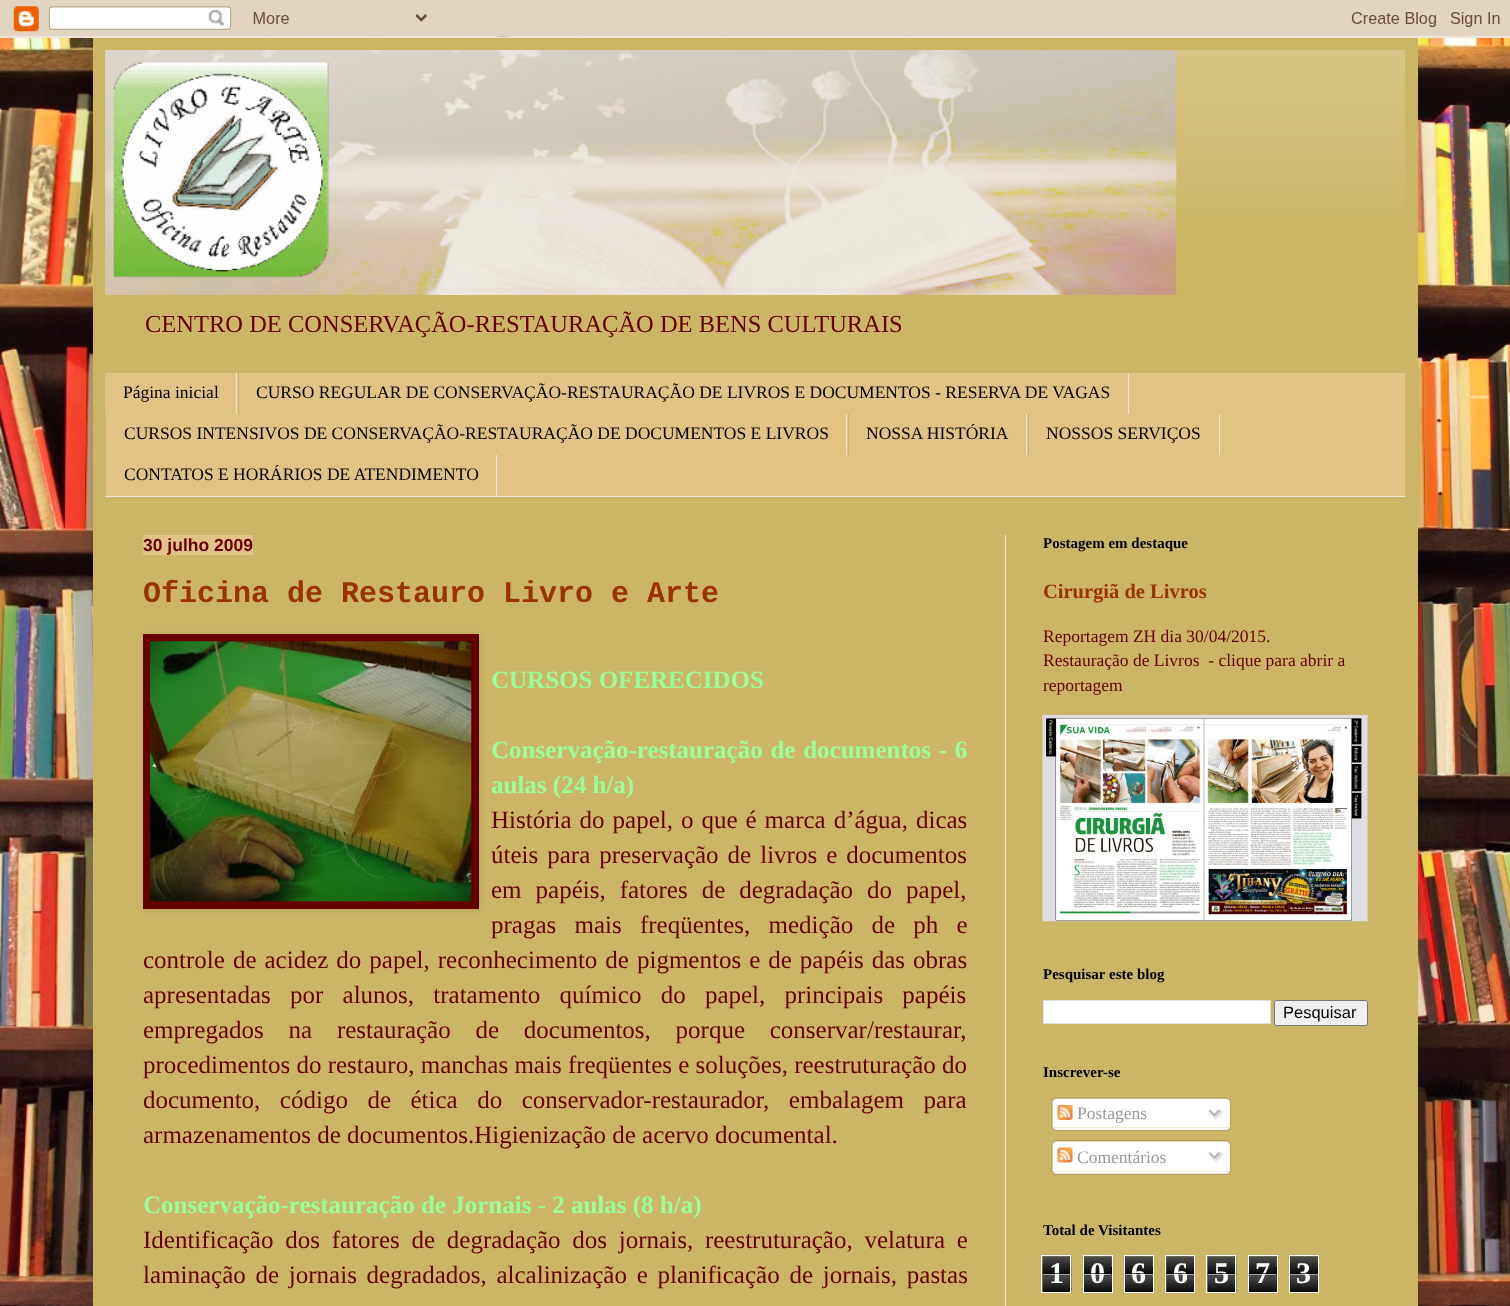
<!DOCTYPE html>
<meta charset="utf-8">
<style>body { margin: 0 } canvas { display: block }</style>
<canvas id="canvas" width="1510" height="1306"></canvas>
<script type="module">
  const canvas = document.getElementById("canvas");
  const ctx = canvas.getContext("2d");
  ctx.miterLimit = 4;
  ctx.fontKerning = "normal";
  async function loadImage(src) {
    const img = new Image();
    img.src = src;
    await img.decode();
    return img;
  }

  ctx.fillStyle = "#ffffff";
  ctx.fillRect(0, 0, 1510, 1306);
  ctx.drawImage(await loadImage("img1.png"), 0, 36, 1510, 1270);
  ctx.fillStyle = "rgba(0, 0, 0, 0.15)";
  ctx.filter = "blur(25px)";
  ctx.beginPath();
  ctx.rect(93, 38, 1325, 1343);
  ctx.fill();
  ctx.filter = "none";
  ctx.drawImage(await loadImage("img2.png"), 0, 0, 1510, 38);
  ctx.fillStyle = "#ccb666";
  ctx.fillRect(93, 38, 1325, 1268);
  ctx.drawImage(await loadImage("img3.png"), 1176, 50, 229, 163);
  ctx.drawImage(await loadImage("img4.png"), 105, 50, 1072, 245);
  ctx.font = "24.5px Liberation Serif";
  ctx.fillStyle = "#660000";
  ctx.fillText("CENTRO DE CONSERVAÇÃO-RESTAURAÇÃO DE BENS CULTURAIS", 145, 332);
  ctx.fillStyle = "#e3c286";
  ctx.fillRect(105, 373, 1300, 123);
  ctx.fillStyle = "#eee5dd";
  ctx.fillRect(105, 496, 1300, 1);
  ctx.fillRect(236, 373, 1, 41);
  ctx.font = "17.5px Liberation Serif";
  ctx.fillStyle = "#000000";
  ctx.fillText("Página inicial", 123, 398);
  ctx.fillStyle = "#eee5dd";
  ctx.fillRect(1128, 373, 1, 41);
  ctx.fillStyle = "#ccb666";
  ctx.fillRect(238, 373, 1, 41);
  ctx.fillStyle = "#000000";
  ctx.fillText("CURSO REGULAR DE CONSERVAÇÃO-RESTAURAÇÃO DE LIVROS E DOCUMENTOS - RESERVA DE VAGAS", 256, 398);
  ctx.fillStyle = "#eee5dd";
  ctx.fillRect(846, 414, 1, 41);
  ctx.fillStyle = "#ccb666";
  ctx.fillRect(105, 414, 1, 82);
  ctx.fillStyle = "#000000";
  ctx.fillText("CURSOS INTENSIVOS DE CONSERVAÇÃO-RESTAURAÇÃO DE DOCUMENTOS E LIVROS", 124, 439);
  ctx.fillStyle = "#eee5dd";
  ctx.fillRect(1026, 414, 1, 41);
  ctx.fillStyle = "#ccb666";
  ctx.fillRect(848, 414, 1, 41);
  ctx.fillStyle = "#000000";
  ctx.fillText("NOSSA HISTÓRIA", 866, 439);
  ctx.fillStyle = "#eee5dd";
  ctx.fillRect(1219, 414, 1, 41);
  ctx.fillStyle = "#ccb666";
  ctx.fillRect(1028, 414, 1, 41);
  ctx.fillStyle = "#000000";
  ctx.fillText("NOSSOS SERVIÇOS", 1046, 439);
  ctx.fillStyle = "#eee5dd";
  ctx.fillRect(496, 455, 1, 41);
  ctx.fillStyle = "#000000";
  ctx.fillText("CONTATOS E HORÁRIOS DE ATENDIMENTO", 124, 480);
  ctx.fillStyle = "#eee5dd";
  ctx.fillRect(1005, 535, 1, 771);
  ctx.fillStyle = "#e3c286";
  ctx.fillRect(143, 535, 110, 20);
  ctx.font = "bold 17.5px Liberation Sans";
  ctx.fillStyle = "#660000";
  ctx.fillText("30 julho 2009", 143, 551);
  ctx.font = "bold 30px Liberation Mono";
  ctx.fillStyle = "#993300";
  ctx.fillText("Oficina de Restauro Livro e Arte", 143, 602);
  ctx.fillStyle = "rgba(0, 0, 0, 0.1)";
  ctx.filter = "blur(3px)";
  ctx.beginPath();
  ctx.rect(144, 635, 336, 275);
  ctx.fill();
  ctx.filter = "none";
  ctx.fillStyle = "#660000";
  ctx.fillRect(143, 634, 336, 275);
  ctx.drawImage(await loadImage("img5.png"), 150, 641, 322, 261);
  ctx.font = "bold 25px Liberation Serif";
  ctx.fillStyle = "#99ff99";
  ctx.fillText("CURSOS OFERECIDOS", 491, 688);
  ctx.wordSpacing = "1.5px";
  ctx.fillText("Conservação-restauração de documentos - 6", 491, 758);
  ctx.wordSpacing = "0px";
  ctx.fillText("aulas (24 h/a)", 491, 793);
  ctx.wordSpacing = "1.75px";
  ctx.font = "25px Liberation Serif";
  ctx.fillStyle = "#660000";
  ctx.fillText("História do papel, o que é marca d’água, dicas", 491, 828);
  ctx.wordSpacing = "2.75px";
  ctx.fillText("úteis para preservação de livros e documentos", 491, 863);
  ctx.wordSpacing = "7.75px";
  ctx.fillText("em papéis, fatores de degradação do papel,", 491, 898);
  ctx.wordSpacing = "12px";
  ctx.fillText("pragas mais freqüentes, medição de ph e", 491, 933);
  ctx.wordSpacing = "1.75px";
  ctx.fillText("controle de acidez do papel, reconhecimento de pigmentos e de papéis das obras", 143, 968);
  ctx.wordSpacing = "13px";
  ctx.fillText("apresentadas por alunos, tratamento químico do papel, principais papéis", 143, 1003);
  ctx.wordSpacing = "18.5px";
  ctx.fillText("empregados na restauração de documentos, porque conservar/restaurar,", 143, 1038);
  ctx.wordSpacing = "0px";
  ctx.fillText("procedimentos do restauro, manchas mais freqüentes e soluções, reestruturação do", 143, 1073);
  ctx.wordSpacing = "13.25px";
  ctx.fillText("documento, código de ética do conservador-restaurador, embalagem para", 143, 1108);
  ctx.wordSpacing = "0px";
  ctx.fillText("armazenamentos de documentos.Higienização de acervo documental.", 143, 1143);
  ctx.font = "bold 25px Liberation Serif";
  ctx.fillStyle = "#99ff99";
  ctx.fillText("Conservação-restauração de Jornais - 2 aulas (8 h/a)", 143, 1213);
  ctx.wordSpacing = "5.5px";
  ctx.font = "25px Liberation Serif";
  ctx.fillStyle = "#660000";
  ctx.fillText("Identificação dos fatores de degradação dos jornais, reestruturação, velatura e", 143, 1248);
  ctx.wordSpacing = "3.5px";
  ctx.fillText("laminação de jornais degradados, alcalinização e planificação de jornais, pastas", 143, 1283);
  ctx.wordSpacing = "0px";
  ctx.font = "bold 15px Liberation Serif";
  ctx.fillStyle = "#000000";
  ctx.fillText("Postagem em destaque", 1043, 548);
  ctx.font = "bold 20.5px Liberation Serif";
  ctx.fillStyle = "#993300";
  ctx.fillText("Cirurgiã de Livros", 1043, 598);
  ctx.font = "17.5px Liberation Serif";
  ctx.fillStyle = "#660000";
  ctx.fillText("Reportagem ZH dia 30/04/2015.", 1043, 642);
  ctx.fillText("Restauração de Livros  - clique para abrir a", 1043, 666);
  ctx.fillText("reportagem", 1043, 691);
  ctx.drawImage(await loadImage("img6.png"), 1042, 715, 326, 207);
  ctx.font = "bold 15px Liberation Serif";
  ctx.fillStyle = "#000000";
  ctx.fillText("Pesquisar este blog", 1043, 979);
  ctx.fillStyle = "#ffffff";
  ctx.beginPath();
  ctx.rect(1043.5, 1000.5, 227, 23);
  ctx.fill();
  ctx.strokeStyle = "#dddddd";
  ctx.stroke();
  ctx.fillStyle = "#efefef";
  ctx.beginPath();
  ctx.roundRect(1274.5, 1000.5, 93, 25, 2);
  ctx.fill();
  ctx.strokeStyle = "#767676";
  ctx.stroke();
  ctx.font = "16.5px Liberation Sans";
  ctx.fillStyle = "#000000";
  ctx.fillText("Pesquisar", 1283, 1018);
  ctx.font = "bold 15px Liberation Serif";
  ctx.fillText("Inscrever-se", 1043, 1077);
  ctx.drawImage(await loadImage("img7.png"), 1051, 1097, 181, 31);
  ctx.drawImage(await loadImage("img8.png"), 1057, 1105, 16, 15);
  ctx.font = "17.5px Liberation Serif";
  ctx.fillStyle = "#999999";
  ctx.fillText("Postagens", 1077, 1119);
  ctx.drawImage(await loadImage("img9.png"), 1207, 1109, 17, 11);
  ctx.drawImage(await loadImage("img10.png"), 1051, 1127, 180, 5);
  ctx.drawImage(await loadImage("img11.png"), 1051, 1140, 181, 32);
  ctx.drawImage(await loadImage("img12.png"), 1057, 1147, 16, 16);
  ctx.fillText("Comentários", 1077, 1163);
  ctx.drawImage(await loadImage("img13.png"), 1207, 1151, 17, 12);
  ctx.drawImage(await loadImage("img14.png"), 1051, 1171, 180, 4);
  ctx.font = "bold 15px Liberation Serif";
  ctx.fillStyle = "#000000";
  ctx.fillText("Total de Visitantes", 1043, 1235);
  ctx.drawImage(await loadImage("img15.png"), 1042, 1256, 30, 37);
  ctx.strokeStyle = "#ffffff";
  ctx.strokeRect(1041.5, 1255.5, 29, 37);
  ctx.font = "bold 30px Liberation Serif";
  ctx.fillStyle = "#ffffff";
  ctx.fillText("1", 1049, 1283);
  ctx.fillStyle = "rgba(0, 0, 0, 0.65)";
  ctx.fillRect(1043, 1273, 27, 1);
  ctx.fillStyle = "rgba(255, 255, 255, 0.65)";
  ctx.fillRect(1043, 1274, 27, 1);
  ctx.drawImage(await loadImage("img16.png"), 1084, 1256, 28, 36);
  ctx.strokeRect(1083.5, 1255.5, 29, 37);
  ctx.fillStyle = "#ffffff";
  ctx.fillText("0", 1090, 1283);
  ctx.fillStyle = "rgba(0, 0, 0, 0.65)";
  ctx.fillRect(1084, 1273, 27, 1);
  ctx.fillStyle = "rgba(255, 255, 255, 0.65)";
  ctx.fillRect(1084, 1274, 27, 1);
  ctx.drawImage(await loadImage("img17.png"), 1125, 1256, 28, 36);
  ctx.strokeRect(1124.5, 1255.5, 29, 37);
  ctx.fillStyle = "#ffffff";
  ctx.fillText("6", 1131, 1283);
  ctx.fillStyle = "rgba(0, 0, 0, 0.65)";
  ctx.fillRect(1125, 1273, 28, 1);
  ctx.fillStyle = "rgba(255, 255, 255, 0.65)";
  ctx.fillRect(1125, 1274, 28, 1);
  ctx.drawImage(await loadImage("img18.png"), 1166, 1256, 28, 36);
  ctx.strokeRect(1165.5, 1255.5, 29, 37);
  ctx.fillStyle = "#ffffff";
  ctx.fillText("6", 1173, 1283);
  ctx.fillStyle = "rgba(0, 0, 0, 0.65)";
  ctx.fillRect(1166, 1273, 28, 1);
  ctx.fillStyle = "rgba(255, 255, 255, 0.65)";
  ctx.fillRect(1166, 1274, 28, 1);
  ctx.drawImage(await loadImage("img15.png"), 1207, 1256, 30, 37);
  ctx.strokeRect(1206.5, 1255.5, 29, 37);
  ctx.fillStyle = "#ffffff";
  ctx.fillText("5", 1214, 1283);
  ctx.fillStyle = "rgba(0, 0, 0, 0.65)";
  ctx.fillRect(1208, 1273, 27, 1);
  ctx.fillStyle = "rgba(255, 255, 255, 0.65)";
  ctx.fillRect(1208, 1274, 27, 1);
  ctx.drawImage(await loadImage("img16.png"), 1249, 1256, 28, 36);
  ctx.strokeRect(1248.5, 1255.5, 29, 37);
  ctx.fillStyle = "#ffffff";
  ctx.fillText("7", 1255, 1283);
  ctx.fillStyle = "rgba(0, 0, 0, 0.65)";
  ctx.fillRect(1249, 1273, 27, 1);
  ctx.fillStyle = "rgba(255, 255, 255, 0.65)";
  ctx.fillRect(1249, 1274, 27, 1);
  ctx.drawImage(await loadImage("img17.png"), 1290, 1256, 28, 36);
  ctx.strokeRect(1289.5, 1255.5, 29, 37);
  ctx.fillStyle = "#ffffff";
  ctx.fillText("3", 1296, 1283);
  ctx.fillStyle = "rgba(0, 0, 0, 0.65)";
  ctx.fillRect(1290, 1273, 28, 1);
  ctx.fillStyle = "rgba(255, 255, 255, 0.65)";
  ctx.fillRect(1290, 1274, 28, 1);
</script>
